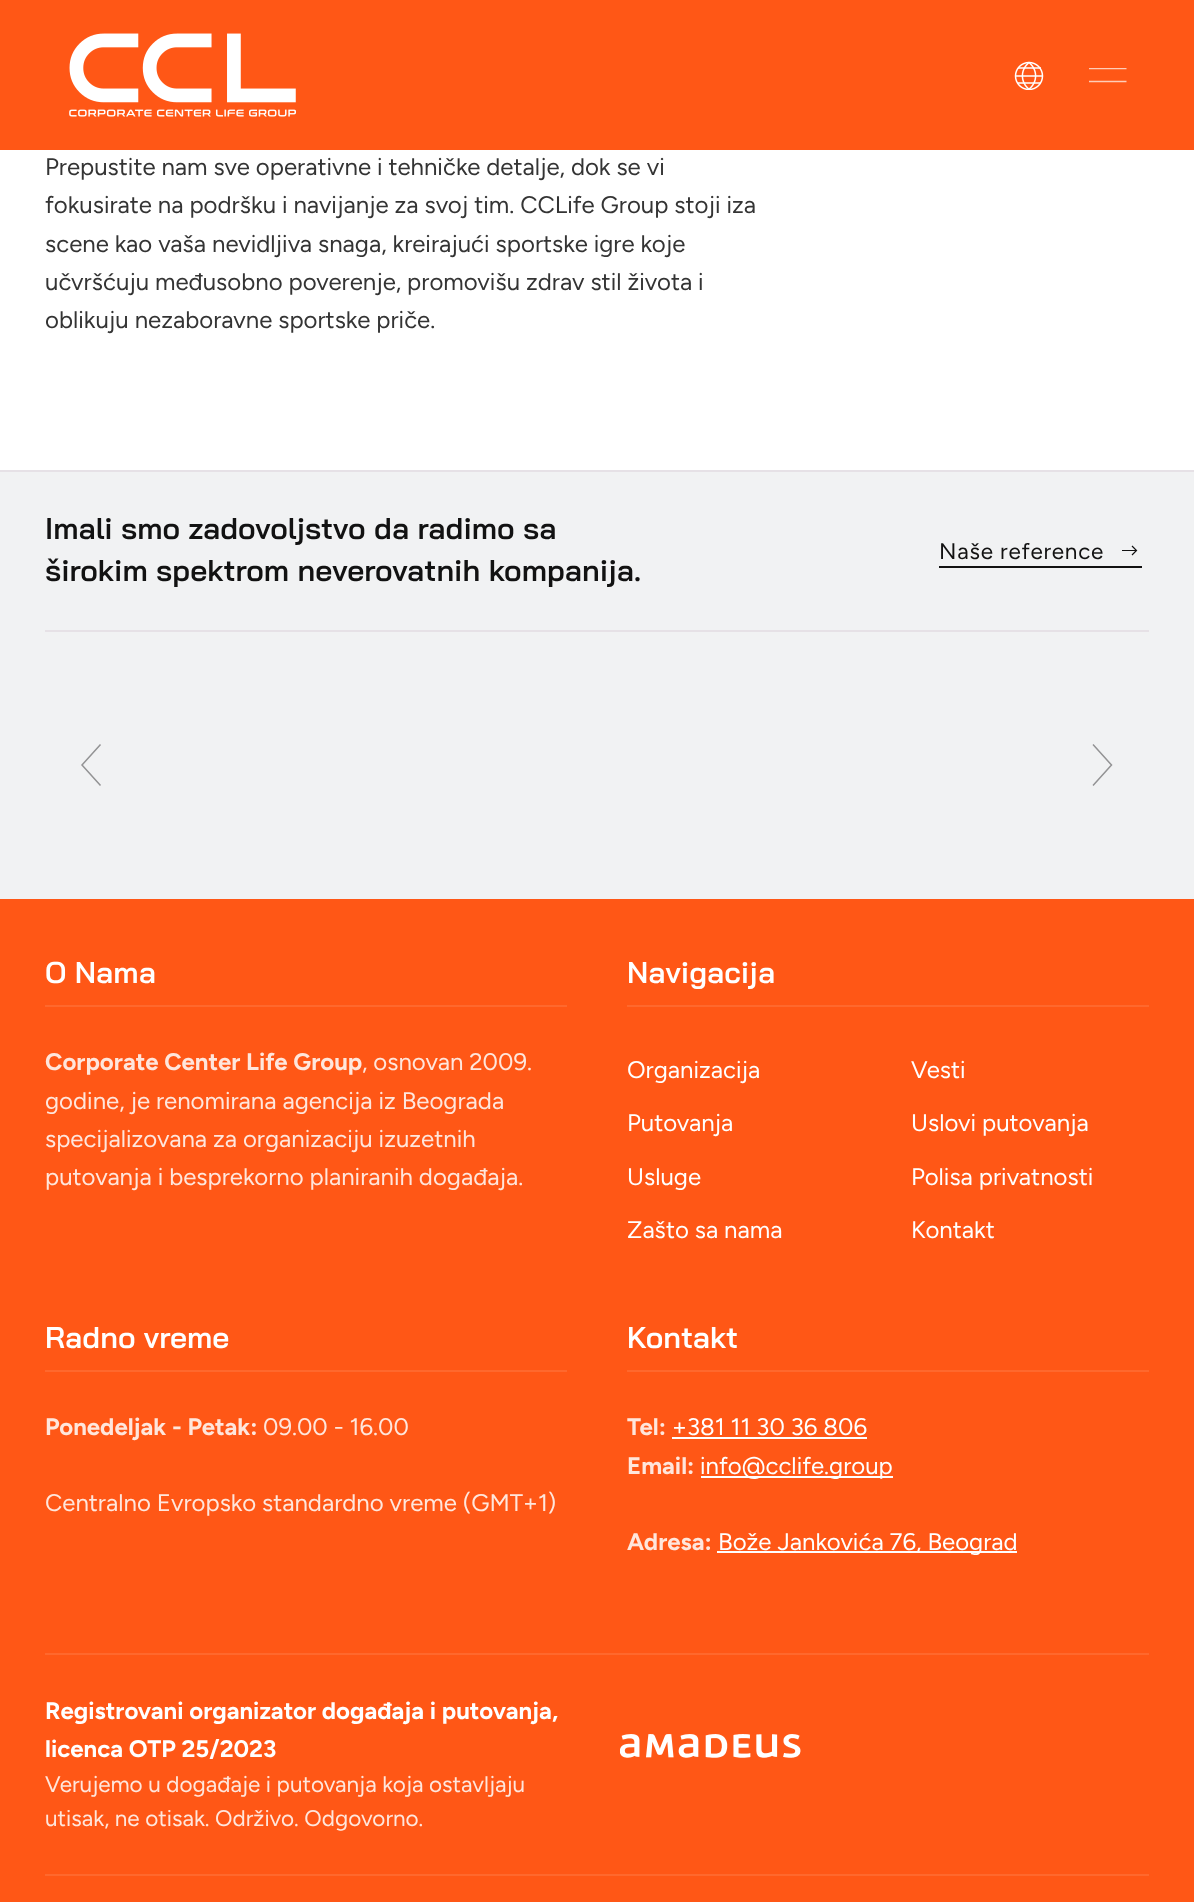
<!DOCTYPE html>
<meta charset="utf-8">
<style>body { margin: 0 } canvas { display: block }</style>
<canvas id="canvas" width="1194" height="1902"></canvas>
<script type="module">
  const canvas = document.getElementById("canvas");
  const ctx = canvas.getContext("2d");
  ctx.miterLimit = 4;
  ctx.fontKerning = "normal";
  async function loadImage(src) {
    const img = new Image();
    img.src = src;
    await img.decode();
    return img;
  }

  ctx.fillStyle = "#ffffff";
  ctx.fillRect(0, 0, 1194, 1902);
  ctx.fillStyle = "#ff5716";
  ctx.fillRect(0, 0, 1194, 150);
  ctx.drawImage(await loadImage("img1.png"), 69, 33, 227, 84);
  ctx.drawImage(await loadImage("img2.png"), 1014, 61, 30, 29);
  ctx.save();
  ctx.beginPath();
  ctx.rect(1089, 68, 38, 15);
  ctx.clip();
  ctx.beginPath();
  ctx.moveTo(1089, 68.5);
  ctx.lineTo(1126.5, 68.5);
  ctx.strokeStyle = "#ffcdb9";
  ctx.lineWidth = 1.5;
  ctx.stroke();
  ctx.restore();
  ctx.beginPath();
  ctx.moveTo(1089, 81.5);
  ctx.lineTo(1126.5, 81.5);
  ctx.strokeStyle = "#ffcdb9";
  ctx.lineWidth = 1.5;
  ctx.stroke();
  ctx.font = "24px Figtree";
  ctx.fillStyle = "#343434";
  ctx.fillText("Prepustite nam sve operativne i tehničke detalje, dok se vi", 45, 175);
  ctx.fillText("fokusirate na podršku i navijanje za svoj tim. CCLife Group stoji iza", 45, 213);
  ctx.fillText("scene kao vaša nevidljiva snaga, kreirajući sportske igre koje", 45, 252);
  ctx.fillText("učvršćuju međusobno poverenje, promovišu zdrav stil života i", 45, 290);
  ctx.fillText("oblikuju nezaboravne sportske priče.", 45, 328);
  ctx.fillStyle = "#e6e1e6";
  ctx.fillRect(0, 470, 1194, 2);
  ctx.fillStyle = "#f1f2f3";
  ctx.fillRect(0, 472, 1194, 427);
  ctx.font = "600 30px Bai Jamjuree";
  ctx.fillStyle = "#121212";
  ctx.fillText("Imali smo zadovoljstvo da radimo sa", 45, 539);
  ctx.fillText("širokim spektrom neverovatnih kompanija.", 45, 581);
  ctx.fillRect(939, 566, 203, 2);
  ctx.letterSpacing = "0.75px";
  ctx.font = "22.5px Figtree";
  ctx.fillText("Naše reference", 939, 559);
  ctx.fillRect(1122, 550, 14, 1);
  ctx.beginPath();
  ctx.moveTo(1132, 555);
  ctx.lineTo(1136.5, 550.5);
  ctx.lineTo(1132, 546);
  ctx.strokeStyle = "#121212";
  ctx.lineWidth = 1.2;
  ctx.stroke();
  ctx.fillStyle = "#e6e1e6";
  ctx.fillRect(45, 630, 1104, 2);
  ctx.beginPath();
  ctx.moveTo(100.5, 785.5);
  ctx.lineTo(82, 765);
  ctx.lineTo(100.5, 744.5);
  ctx.strokeStyle = "#939394";
  ctx.lineWidth = 1.5;
  ctx.stroke();
  ctx.beginPath();
  ctx.moveTo(1093, 785.5);
  ctx.lineTo(1111.5, 765);
  ctx.lineTo(1093, 744.5);
  ctx.stroke();
  ctx.fillStyle = "#ff5716";
  ctx.fillRect(0, 899, 1194, 1003);
  ctx.fillStyle = "#ff682d";
  ctx.fillRect(45, 1005, 522, 2);
  ctx.letterSpacing = "0px";
  ctx.font = "600 30px Bai Jamjuree";
  ctx.fillStyle = "#ffffff";
  ctx.fillText("O Nama", 45, 983);
  ctx.font = "bold 24px Figtree";
  ctx.fillStyle = "#ffe6dc";
  ctx.fillText("Corporate Center Life Group", 45, 1070);
  ctx.font = "24px Figtree";
  ctx.fillText(", osnovan 2009.", 362, 1070);
  ctx.fillText("godine, je renomirana agencija iz Beograda", 45, 1109);
  ctx.fillText("specijalizovana za organizaciju izuzetnih", 45, 1147);
  ctx.fillText("putovanja i besprekorno planiranih događaja.", 45, 1185);
  ctx.fillStyle = "#ff682d";
  ctx.fillRect(627, 1005, 522, 2);
  ctx.font = "600 30px Bai Jamjuree";
  ctx.fillStyle = "#ffffff";
  ctx.fillText("Navigacija", 627, 983);
  ctx.font = "24px Figtree";
  ctx.fillText("Organizacija", 627, 1078);
  ctx.fillText("Vesti", 911, 1078);
  ctx.fillText("Putovanja", 627, 1131);
  ctx.fillText("Uslovi putovanja", 911, 1131);
  ctx.fillText("Usluge", 627, 1185);
  ctx.fillText("Polisa privatnosti", 911, 1185);
  ctx.fillText("Zašto sa nama", 627, 1238);
  ctx.fillText("Kontakt", 911, 1238);
  ctx.fillStyle = "#ff682d";
  ctx.fillRect(45, 1370, 522, 2);
  ctx.font = "600 30px Bai Jamjuree";
  ctx.fillStyle = "#ffffff";
  ctx.fillText("Radno vreme", 45, 1348);
  ctx.font = "bold 24px Figtree";
  ctx.fillStyle = "#ffe6dc";
  ctx.fillText("Ponedeljak - Petak:", 45, 1435);
  ctx.font = "24px Figtree";
  ctx.fillText("09.00 - 16.00", 263, 1435);
  ctx.fillText("Centralno Evropsko standardno vreme (GMT+1)", 45, 1511);
  ctx.fillStyle = "#ff682d";
  ctx.fillRect(627, 1370, 522, 2);
  ctx.font = "600 30px Bai Jamjuree";
  ctx.fillStyle = "#ffffff";
  ctx.fillText("Kontakt", 627, 1348);
  ctx.font = "bold 24px Figtree";
  ctx.fillStyle = "#ffe6dc";
  ctx.fillText("Tel:", 627, 1435);
  ctx.font = "24px Figtree";
  ctx.fillStyle = "#ffffff";
  ctx.fillText("+381 11 30 36 806", 672, 1435);
  ctx.fillRect(672, 1437, 195, 2);
  ctx.font = "bold 24px Figtree";
  ctx.fillStyle = "#ffe6dc";
  ctx.fillText("Email:", 627, 1474);
  ctx.fillStyle = "#ffffff";
  ctx.fillRect(701, 1476, 192, 2);
  ctx.font = "24px Figtree";
  ctx.fillText("info@cclife.group", 700, 1474);
  ctx.font = "bold 24px Figtree";
  ctx.fillStyle = "#ffe6dc";
  ctx.fillText("Adresa:", 627, 1550);
  ctx.fillStyle = "#ffffff";
  ctx.fillRect(717, 1551, 300, 2);
  ctx.font = "24px Figtree";
  ctx.fillText("Bože Jankovića 76, Beograd", 718, 1550);
  ctx.fillStyle = "#ff682d";
  ctx.fillRect(45, 1653, 1104, 2);
  ctx.font = "bold 24px Figtree";
  ctx.fillStyle = "#ffffff";
  ctx.fillText("Registrovani organizator događaja i putovanja,", 45, 1719);
  ctx.fillText("licenca OTP 25/2023", 45, 1757);
  ctx.font = "22.5px Figtree";
  ctx.fillStyle = "#ffe6dc";
  ctx.fillText("Verujemo u događaje i putovanja koja ostavljaju", 45, 1792);
  ctx.fillText("utisak, ne otisak. Održivo. Odgovorno.", 45, 1826);
  ctx.drawImage(await loadImage("img3.png"), 620, 1734, 181, 24);
  ctx.fillStyle = "#ff682d";
  ctx.fillRect(45, 1874, 1104, 2);
</script>
